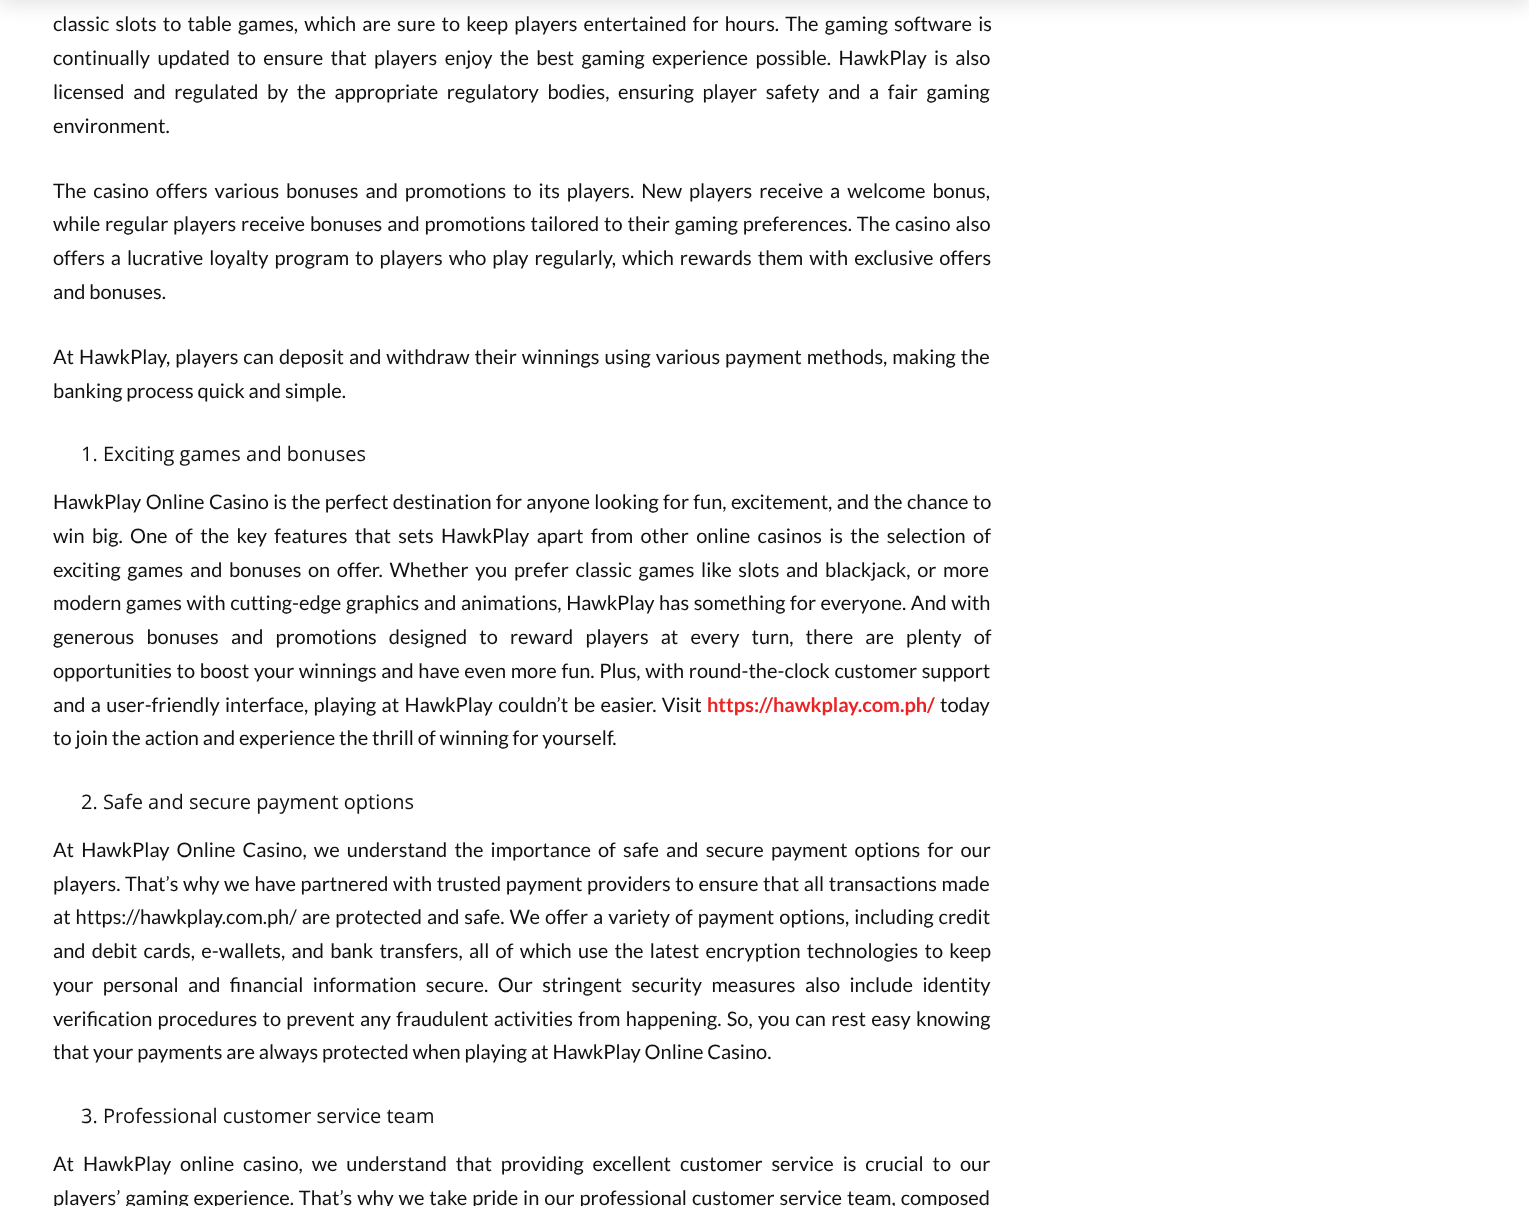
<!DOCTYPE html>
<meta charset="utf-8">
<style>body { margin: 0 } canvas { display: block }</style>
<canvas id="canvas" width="1529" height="1206"></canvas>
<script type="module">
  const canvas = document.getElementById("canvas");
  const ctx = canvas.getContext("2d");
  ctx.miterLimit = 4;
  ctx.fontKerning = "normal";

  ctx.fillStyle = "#ffffff";
  ctx.fillRect(0, 0, 1529, 1206);
  ctx.fillStyle = "rgba(0, 0, 0, 0.1)";
  ctx.filter = "blur(9.5px)";
  ctx.beginPath();
  ctx.rect(0, -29, 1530, 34);
  ctx.fill();
  ctx.filter = "none";
  ctx.wordSpacing = "2.25px";
  ctx.font = "20px Lato";
  ctx.fillStyle = "#111111";
  ctx.fillText("classic slots to table games, which are sure to keep players entertained for hours. The gaming software is", 53, 31);
  ctx.wordSpacing = "3.5px";
  ctx.fillText("continually updated to ensure that players enjoy the best gaming experience possible. HawkPlay is also", 53, 65);
  ctx.wordSpacing = "4.75px";
  ctx.fillText("licensed and regulated by the appropriate regulatory bodies, ensuring player safety and a fair gaming", 53, 99);
  ctx.wordSpacing = "0px";
  ctx.fillText("environment.", 53, 133);
  ctx.wordSpacing = "3.1px";
  ctx.fillText("The casino offers various bonuses and promotions to its players. New players receive a welcome bonus,", 53, 198);
  ctx.wordSpacing = "1px";
  ctx.fillText("while regular players receive bonuses and promotions tailored to their gaming preferences. The casino also", 53, 231);
  ctx.wordSpacing = "2.1px";
  ctx.fillText("offers a lucrative loyalty program to players who play regularly, which rewards them with exclusive offers", 53, 265);
  ctx.wordSpacing = "0px";
  ctx.fillText("and bonuses.", 53, 299);
  ctx.wordSpacing = "1.1px";
  ctx.fillText("At HawkPlay, players can deposit and withdraw their winnings using various payment methods, making the", 53, 364);
  ctx.wordSpacing = "0px";
  ctx.fillText("banking process quick and simple.", 53, 398);
  ctx.font = "20px Open Sans";
  ctx.fillText("1. Exciting games and bonuses", 81, 461);
  ctx.wordSpacing = "0.5px";
  ctx.font = "20px Lato";
  ctx.fillText("HawkPlay Online Casino is the perfect destination for anyone looking for fun, excitement, and the chance to", 53, 509);
  ctx.wordSpacing = "3.5px";
  ctx.fillText("win big. One of the key features that sets HawkPlay apart from other online casinos is the selection of", 53, 543);
  ctx.wordSpacing = "2.75px";
  ctx.fillText("exciting games and bonuses on offer. Whether you prefer classic games like slots and blackjack, or more", 53, 577);
  ctx.wordSpacing = "0.75px";
  ctx.fillText("modern games with cutting-edge graphics and animations, HawkPlay has something for everyone. And with", 53, 610);
  ctx.wordSpacing = "8.25px";
  ctx.fillText("generous bonuses and promotions designed to reward players at every turn, there are plenty of", 53, 644);
  ctx.wordSpacing = "0.75px";
  ctx.fillText("opportunities to boost your winnings and have even more fun. Plus, with round-the-clock customer support", 53, 678);
  ctx.wordSpacing = "1.5px";
  ctx.fillText("and a user-friendly interface, playing at HawkPlay couldn’t be easier. Visit", 53, 712);
  ctx.wordSpacing = "0px";
  ctx.font = "bold 20px Lato";
  ctx.fillStyle = "#ea2323";
  ctx.fillText("https://hawkplay.com.ph/", 707, 712);
  ctx.font = "20px Lato";
  ctx.fillStyle = "#111111";
  ctx.fillText("today", 940, 712);
  ctx.fillText("to join the action and experience the thrill of winning for yourself.", 53, 745);
  ctx.font = "20px Open Sans";
  ctx.fillText("2. Safe and secure payment options", 81, 809);
  ctx.wordSpacing = "3.25px";
  ctx.font = "20px Lato";
  ctx.fillText("At HawkPlay Online Casino, we understand the importance of safe and secure payment options for our", 53, 857);
  ctx.wordSpacing = "0.75px";
  ctx.fillText("players. That’s why we have partnered with trusted payment providers to ensure that all transactions made", 53, 891);
  ctx.wordSpacing = "1.1px";
  ctx.fillText("at https://hawkplay.com.ph/ are protected and safe. We offer a variety of payment options, including credit", 53, 924);
  ctx.wordSpacing = "2.4px";
  ctx.fillText("and debit cards, e-wallets, and bank transfers, all of which use the latest encryption technologies to keep", 53, 958);
  ctx.wordSpacing = "5.6px";
  ctx.fillText("your personal and financial information secure. Our stringent security measures also include identity", 53, 992);
  ctx.wordSpacing = "1.4px";
  ctx.fillText("verification procedures to prevent any fraudulent activities from happening. So, you can rest easy knowing", 53, 1026);
  ctx.wordSpacing = "0px";
  ctx.fillText("that your payments are always protected when playing at HawkPlay Online Casino.", 53, 1059);
  ctx.font = "20px Open Sans";
  ctx.fillText("3. Professional customer service team", 81, 1123);
  ctx.wordSpacing = "5px";
  ctx.font = "20px Lato";
  ctx.fillText("At HawkPlay online casino, we understand that providing excellent customer service is crucial to our", 53, 1171);
  ctx.wordSpacing = "1.1px";
  ctx.fillText("players’ gaming experience. That’s why we take pride in our professional customer service team, composed", 53, 1205);
</script>
